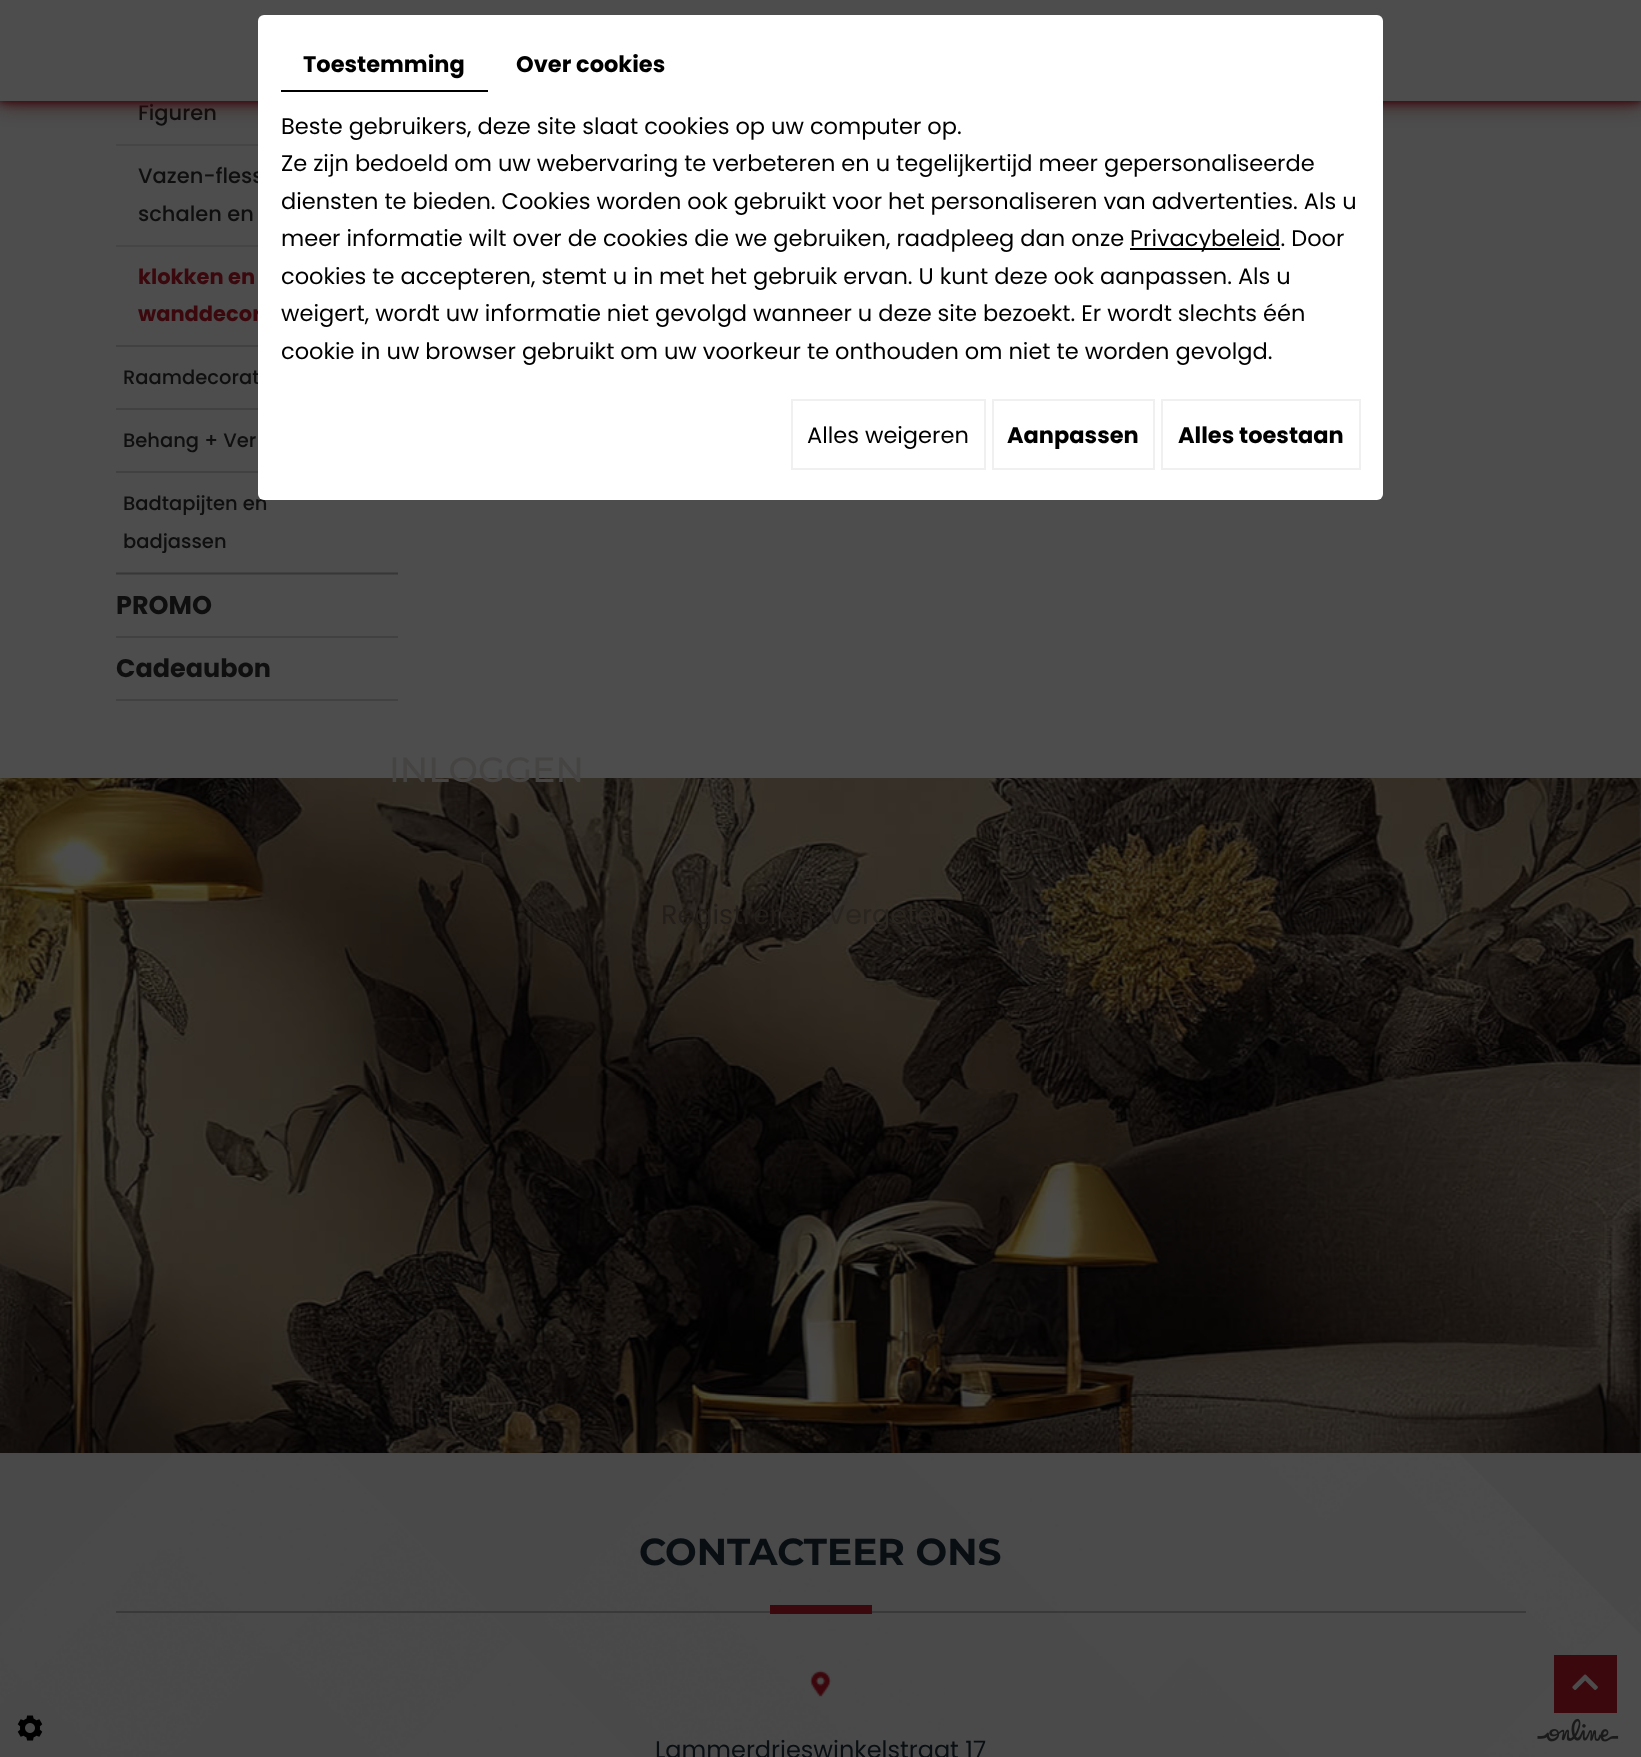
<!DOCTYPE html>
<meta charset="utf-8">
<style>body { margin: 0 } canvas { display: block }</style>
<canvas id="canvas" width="1641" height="1757"></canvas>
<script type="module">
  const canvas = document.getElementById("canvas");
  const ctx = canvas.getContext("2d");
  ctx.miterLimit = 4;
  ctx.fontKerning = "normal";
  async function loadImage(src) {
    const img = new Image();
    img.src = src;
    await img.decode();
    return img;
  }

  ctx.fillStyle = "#4d4d4d";
  ctx.fillRect(0, 0, 1641, 1757);
  ctx.fillStyle = "#414141";
  ctx.fillRect(116, 572, 282, 1);
  ctx.fillRect(116, 574, 282, 1);
  ctx.fillStyle = "#373737";
  ctx.fillRect(116, 573, 282, 1);
  ctx.fillStyle = "#414141";
  ctx.fillRect(116, 345, 142, 2);
  ctx.font = "500 21px Poppins";
  ctx.fillStyle = "#0f0f0f";
  ctx.fillText("Figuren", 138, 120);
  ctx.fillStyle = "#454545";
  ctx.fillRect(116, 144, 142, 2);
  ctx.fillStyle = "#0f0f0f";
  ctx.fillText("Vazen-fless", 138, 183);
  ctx.fillText("schalen en", 138, 221);
  ctx.fillStyle = "#454545";
  ctx.fillRect(116, 245, 142, 2);
  ctx.font = "bold 21px Poppins";
  ctx.fillStyle = "#3b080d";
  ctx.fillText("klokken en", 138, 284);
  ctx.fillText("wanddecor", 138, 321);
  ctx.fillStyle = "#414141";
  ctx.fillRect(116, 408, 142, 2);
  ctx.font = "500 19.5px Poppins";
  ctx.fillStyle = "#0f0f0f";
  ctx.fillText("Raamdecorat", 123, 384);
  ctx.fillStyle = "#414141";
  ctx.fillRect(116, 471, 142, 2);
  ctx.fillStyle = "#0f0f0f";
  ctx.fillText("Behang + Ver", 123, 447);
  ctx.fillText("Badtapijten en", 123, 510);
  ctx.fillText("badjassen", 123, 548);
  ctx.fillStyle = "#414141";
  ctx.fillRect(116, 636, 282, 2);
  ctx.font = "bold 25.5px Poppins";
  ctx.fillStyle = "#0f0f0f";
  ctx.fillText("PROMO", 116, 614);
  ctx.fillStyle = "#414141";
  ctx.fillRect(116, 699, 282, 2);
  ctx.fillStyle = "#0f0f0f";
  ctx.fillText("Cadeaubon", 116, 677);
  ctx.fillStyle = "rgba(59, 8, 13, 0.47)";
  ctx.filter = "blur(4px)";
  ctx.beginPath();
  ctx.rect(0, 0, 1641, 101);
  ctx.fill();
  ctx.filter = "none";
  ctx.fillStyle = "#3b080d";
  ctx.filter = "blur(4px)";
  ctx.beginPath();
  ctx.rect(0, 0, 1641, 101);
  ctx.fill();
  ctx.filter = "none";
  ctx.filter = "blur(11px)";
  ctx.beginPath();
  ctx.rect(0, 0, 1641, 101);
  ctx.fill();
  ctx.filter = "none";
  ctx.fillStyle = "#4d4d4d";
  ctx.fillRect(0, 0, 1641, 101);
  ctx.fillStyle = "#ffffff";
  ctx.beginPath();
  ctx.roundRect(258, 15, 1125, 485, 6);
  ctx.fill();
  ctx.fillStyle = "#000000";
  ctx.fillRect(281, 90, 207, 2);
  ctx.font = "bold 22.5px Poppins";
  ctx.fillText("Toestemming", 303, 72);
  ctx.fillText("Over cookies", 516, 72);
  ctx.font = "22.5px Poppins";
  ctx.fillText("Beste gebruikers, deze site slaat cookies op uw computer op.", 281, 134);
  ctx.fillText("Ze zijn bedoeld om uw webervaring te verbeteren en u tegelijkertijd meer gepersonaliseerde", 281, 171);
  ctx.fillText("diensten te bieden. Cookies worden ook gebruikt voor het personaliseren van advertenties. Als u", 281, 209);
  ctx.fillText("meer informatie wilt over de cookies die we gebruiken, raadpleeg dan onze", 281, 246);
  ctx.fillRect(1130, 248, 150, 2);
  ctx.fillText("Privacybeleid. Door", 1130, 246);
  ctx.fillText("cookies te accepteren, stemt u in met het gebruik ervan. U kunt deze ook aanpassen. Als u", 281, 284);
  ctx.fillText("weigert, wordt uw informatie niet gevolgd wanneer u deze site bezoekt. Er wordt slechts één", 281, 321);
  ctx.fillText("cookie in uw browser gebruikt om uw voorkeur te onthouden om niet te worden gevolgd.", 281, 359);
  ctx.strokeStyle = "#f0f0f0";
  ctx.lineWidth = 2;
  ctx.strokeRect(792, 400, 193, 69);
  ctx.fillText("Alles weigeren", 807, 443);
  ctx.strokeRect(993, 400, 161, 69);
  ctx.font = "bold 22.5px Poppins";
  ctx.fillText("Aanpassen", 1007, 443);
  ctx.strokeRect(1162, 400, 198, 69);
  ctx.fillText("Alles toestaan", 1178, 443);
  ctx.drawImage(await loadImage("img1.png"), 0, 778, 1641, 675);
  ctx.font = "500 35px Montserrat";
  ctx.fillStyle = "#464443";
  ctx.fillText("INLOGGEN", 389, 782);
  ctx.font = "20px Poppins";
  ctx.fillStyle = "#2a251f";
  ctx.fillText("r", 480, 863);
  ctx.font = "27px Poppins";
  ctx.fillStyle = "#231e19";
  ctx.fillText("Registreren", 661, 924);
  ctx.fillStyle = "#2a251f";
  ctx.fillText("Vergeten", 827, 924);
  ctx.drawImage(await loadImage("img2.png"), 0, 1453, 1641, 304);
  ctx.fillStyle = "rgba(5, 5, 5, 0.23)";
  ctx.fillRect(116, 1611, 1410, 2);
  ctx.font = "bold 37.5px Montserrat";
  ctx.fillStyle = "#080e11";
  ctx.fillText("CONTACTEER ONS", 639, 1565);
  ctx.fillStyle = "#3b080d";
  ctx.fillRect(770, 1605, 102, 9);
  ctx.drawImage(await loadImage("img3.png"), 810, 1670, 22, 27);
  ctx.font = "24px Poppins";
  ctx.fillStyle = "#080e11";
  ctx.fillText("Lammerdrieswinkelstraat 17", 655, 1758);
  ctx.fillStyle = "#3b080d";
  ctx.fillRect(1554, 1655, 63, 58);
  ctx.drawImage(await loadImage("img4.png"), 1572, 1674, 26, 16);
  ctx.drawImage(await loadImage("img5.png"), 17, 1715, 26, 26);
  ctx.drawImage(await loadImage("img6.png"), 1537, 1718, 82, 24);
</script>
